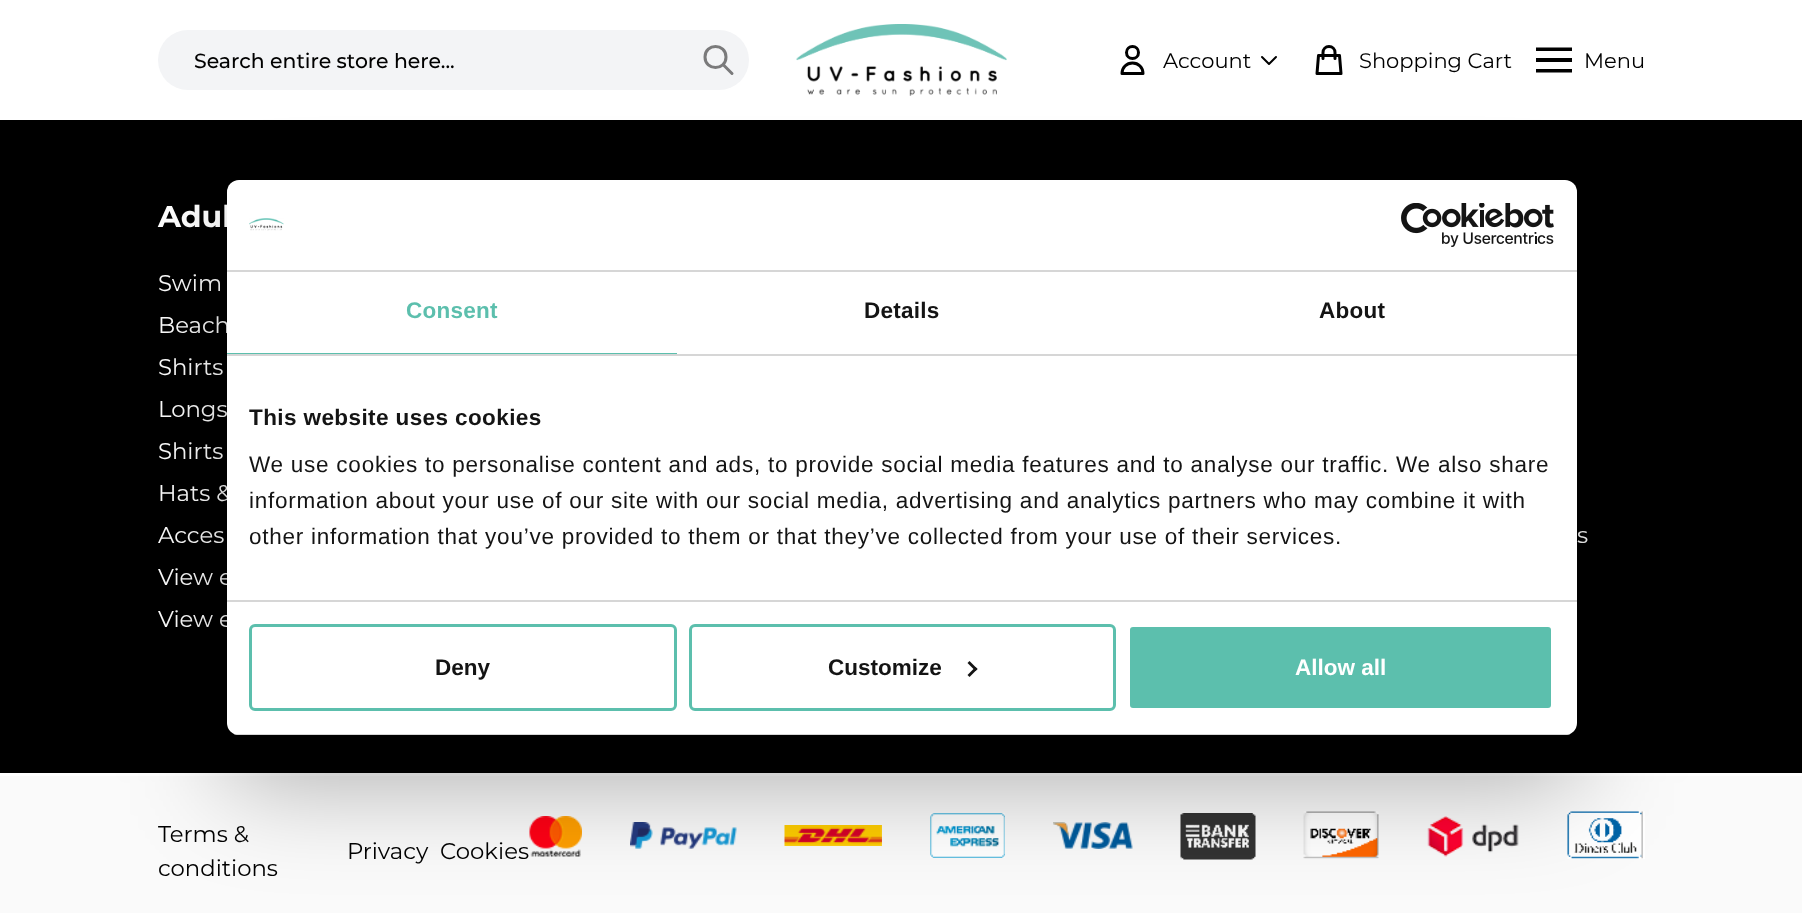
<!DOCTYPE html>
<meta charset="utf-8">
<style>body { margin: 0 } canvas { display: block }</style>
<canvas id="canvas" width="1802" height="913"></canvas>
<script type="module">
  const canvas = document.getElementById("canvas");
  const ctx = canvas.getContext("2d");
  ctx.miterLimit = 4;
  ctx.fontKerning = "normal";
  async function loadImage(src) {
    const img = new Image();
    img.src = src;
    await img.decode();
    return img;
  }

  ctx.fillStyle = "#000000";
  ctx.fillRect(0, 0, 1802, 913);
  ctx.fillStyle = "#ffffff";
  ctx.fillRect(0, 0, 1802, 120);
  ctx.fillStyle = "#f3f4f6";
  ctx.beginPath();
  ctx.roundRect(158, 30, 591, 60, 30);
  ctx.fill();
  ctx.font = "500 20.4px Montserrat";
  ctx.fillStyle = "#000000";
  ctx.fillText("Search entire store here...", 194, 68);
  ctx.beginPath();
  ctx.moveTo(732, 73.5);
  ctx.lineTo(723, 64.5);
  ctx.moveTo(726, 57);
  ctx.bezierCurveTo(726, 71, 705, 71, 705, 57);
  ctx.bezierCurveTo(705, 43, 726, 43, 726, 57);
  ctx.closePath();
  ctx.strokeStyle = "#7a7a7b";
  ctx.lineWidth = 3;
  ctx.lineCap = "round";
  ctx.lineJoin = "round";
  ctx.stroke();
  ctx.drawImage(await loadImage("img1.png"), 796, 24, 211, 72);
  ctx.beginPath();
  ctx.moveTo(1138.5, 52.5);
  ctx.bezierCurveTo(1138.5, 60.5, 1126.5, 60.5, 1126.5, 52.5);
  ctx.bezierCurveTo(1126.5, 44.5, 1138.5, 44.5, 1138.5, 52.5);
  ctx.closePath();
  ctx.moveTo(1132.5, 63);
  ctx.bezierCurveTo(1126.5, 63, 1122, 67.5, 1122, 73.5);
  ctx.lineTo(1143, 73.5);
  ctx.bezierCurveTo(1143, 67.5, 1138.5, 63, 1132.5, 63);
  ctx.closePath();
  ctx.strokeStyle = "#000000";
  ctx.stroke();
  ctx.font = "21px Montserrat";
  ctx.fillText("Account", 1163, 68);
  ctx.beginPath();
  ctx.moveTo(1276, 57);
  ctx.lineTo(1269, 64);
  ctx.lineTo(1262, 57);
  ctx.lineWidth = 2;
  ctx.stroke();
  ctx.beginPath();
  ctx.moveTo(1335, 58.5);
  ctx.lineTo(1335, 52.5);
  ctx.bezierCurveTo(1335, 49, 1332.5, 46.5, 1329, 46.5);
  ctx.bezierCurveTo(1325.5, 46.5, 1323, 49, 1323, 52.5);
  ctx.lineTo(1323, 58.5);
  ctx.moveTo(1318.5, 55.5);
  ctx.lineTo(1339.5, 55.5);
  ctx.lineTo(1341, 73.5);
  ctx.lineTo(1317, 73.5);
  ctx.closePath();
  ctx.lineWidth = 3;
  ctx.stroke();
  ctx.fillText("Shopping Cart", 1359, 68);
  ctx.beginPath();
  ctx.moveTo(1536, 47.5);
  ctx.lineTo(1572, 47.5);
  ctx.lineTo(1572, 51);
  ctx.lineTo(1536, 51);
  ctx.closePath();
  ctx.moveTo(1536, 58);
  ctx.lineTo(1572, 58);
  ctx.lineTo(1572, 62);
  ctx.lineTo(1536, 62);
  ctx.closePath();
  ctx.moveTo(1536, 69);
  ctx.lineTo(1572, 69);
  ctx.lineTo(1572, 72.5);
  ctx.lineTo(1536, 72.5);
  ctx.closePath();
  ctx.fill();
  ctx.fillText("Menu", 1584, 68);
  ctx.fillStyle = "#ffffff";
  ctx.fillRect(0, 773, 1802, 3);
  ctx.font = "bold 30px Montserrat";
  ctx.fillText("Adul", 158, 227);
  ctx.font = "22.75px Montserrat";
  ctx.fillText("Swim", 158, 291);
  ctx.fillText("Beach", 158, 333);
  ctx.fillText("Shirts", 158, 375);
  ctx.fillText("Longs", 158, 417);
  ctx.fillText("Shirts", 158, 459);
  ctx.fillText("Hats &", 158, 501);
  ctx.fillText("Acces", 158, 543);
  ctx.fillText("View e", 158, 585);
  ctx.fillText("View e", 158, 627);
  ctx.fillText("s", 1577, 543);
  ctx.fillStyle = "#fafafa";
  ctx.fillRect(0, 776, 1802, 137);
  ctx.fillStyle = "#000000";
  ctx.fillText("Terms &", 158, 842);
  ctx.fillText("conditions", 158, 876);
  ctx.fillText("Privacy", 347, 859);
  ctx.fillText("Cookies", 440, 859);
  ctx.drawImage(await loadImage("img2.png"), 529, 816, 53, 41);
  ctx.drawImage(await loadImage("img3.png"), 630, 822, 107, 27);
  ctx.drawImage(await loadImage("img4.png"), 784, 825, 98, 21);
  ctx.drawImage(await loadImage("img5.png"), 930, 813, 75, 45);
  ctx.drawImage(await loadImage("img6.png"), 1053, 822, 80, 27);
  ctx.drawImage(await loadImage("img7.png"), 1180, 813, 76, 47);
  ctx.drawImage(await loadImage("img8.png"), 1303, 811, 76, 48);
  ctx.drawImage(await loadImage("img9.png"), 1427, 816, 92, 41);
  ctx.drawImage(await loadImage("img10.png"), 1567, 811, 78, 48);
  ctx.fillStyle = "rgba(0, 0, 0, 0.3)";
  ctx.filter = "blur(51px)";
  ctx.beginPath();
  ctx.roundRect(227, 228, 1350, 555, 12);
  ctx.fill();
  ctx.filter = "none";
  ctx.fillStyle = "#ffffff";
  ctx.beginPath();
  ctx.roundRect(227, 180, 1350, 555, 12);
  ctx.fill();
  ctx.fillStyle = "#d6d6d6";
  ctx.fillRect(227, 270, 1350, 2);
  ctx.drawImage(await loadImage("img11.png"), 249, 218, 35, 13);
  ctx.drawImage(await loadImage("img12.png"), 1401, 203, 153, 44);
  ctx.fillRect(227, 354, 1350, 2);
  ctx.fillStyle = "#5cbfad";
  ctx.fillRect(227, 353, 450, 1);
  ctx.letterSpacing = "0.25px";
  ctx.font = "bold 22.5px Liberation Sans";
  ctx.fillText("Consent", 406, 318);
  ctx.fillStyle = "#141414";
  ctx.fillText("Details", 864, 318);
  ctx.fillText("About", 1319, 318);
  ctx.fillStyle = "#d6d6d6";
  ctx.fillRect(227, 600, 1350, 2);
  ctx.letterSpacing = "0.4px";
  ctx.fillStyle = "#141414";
  ctx.fillText("This website uses cookies", 249, 425);
  ctx.letterSpacing = "0.75px";
  ctx.font = "22.5px Liberation Sans";
  ctx.fillText("We use cookies to personalise content and ads, to provide social media features and to analyse our traffic. We also share", 249, 472);
  ctx.fillText("information about your use of our site with our social media, advertising and analytics partners who may combine it with", 249, 508);
  ctx.fillText("other information that you’ve provided to them or that they’ve collected from your use of their services.", 249, 544);
  ctx.save();
  ctx.beginPath();
  ctx.roundRect(227, 180, 1350, 555, 12);
  ctx.clip();
  ctx.fillStyle = "#d6d6d6";
  ctx.fillRect(227, 734, 1350, 1);
  ctx.restore();
  ctx.beginPath();
  ctx.roundRect(250.5, 625.5, 425, 84, 4.5);
  ctx.strokeStyle = "#5cbfad";
  ctx.lineJoin = "miter";
  ctx.stroke();
  ctx.letterSpacing = "0px";
  ctx.font = "bold 22.5px Liberation Sans";
  ctx.fillText("Deny", 435, 675);
  ctx.beginPath();
  ctx.roundRect(690.5, 625.5, 424, 84, 4.5);
  ctx.stroke();
  ctx.fillText("Customize", 828, 675);
  ctx.beginPath();
  ctx.moveTo(969.5, 661);
  ctx.lineTo(977.5, 669);
  ctx.lineTo(975.5, 671);
  ctx.lineTo(967.5, 663);
  ctx.closePath();
  ctx.fill();
  ctx.beginPath();
  ctx.moveTo(975.5, 667);
  ctx.lineTo(977.5, 669);
  ctx.lineTo(969.5, 677);
  ctx.lineTo(967.5, 675);
  ctx.closePath();
  ctx.fill();
  ctx.fillStyle = "#5cbfad";
  ctx.beginPath();
  ctx.roundRect(1128.5, 625.5, 424, 84, 4.5);
  ctx.fill();
  ctx.strokeStyle = "#ffffff";
  ctx.stroke();
  ctx.fillStyle = "#ffffff";
  ctx.fillText("Allow all", 1295, 675);
</script>
